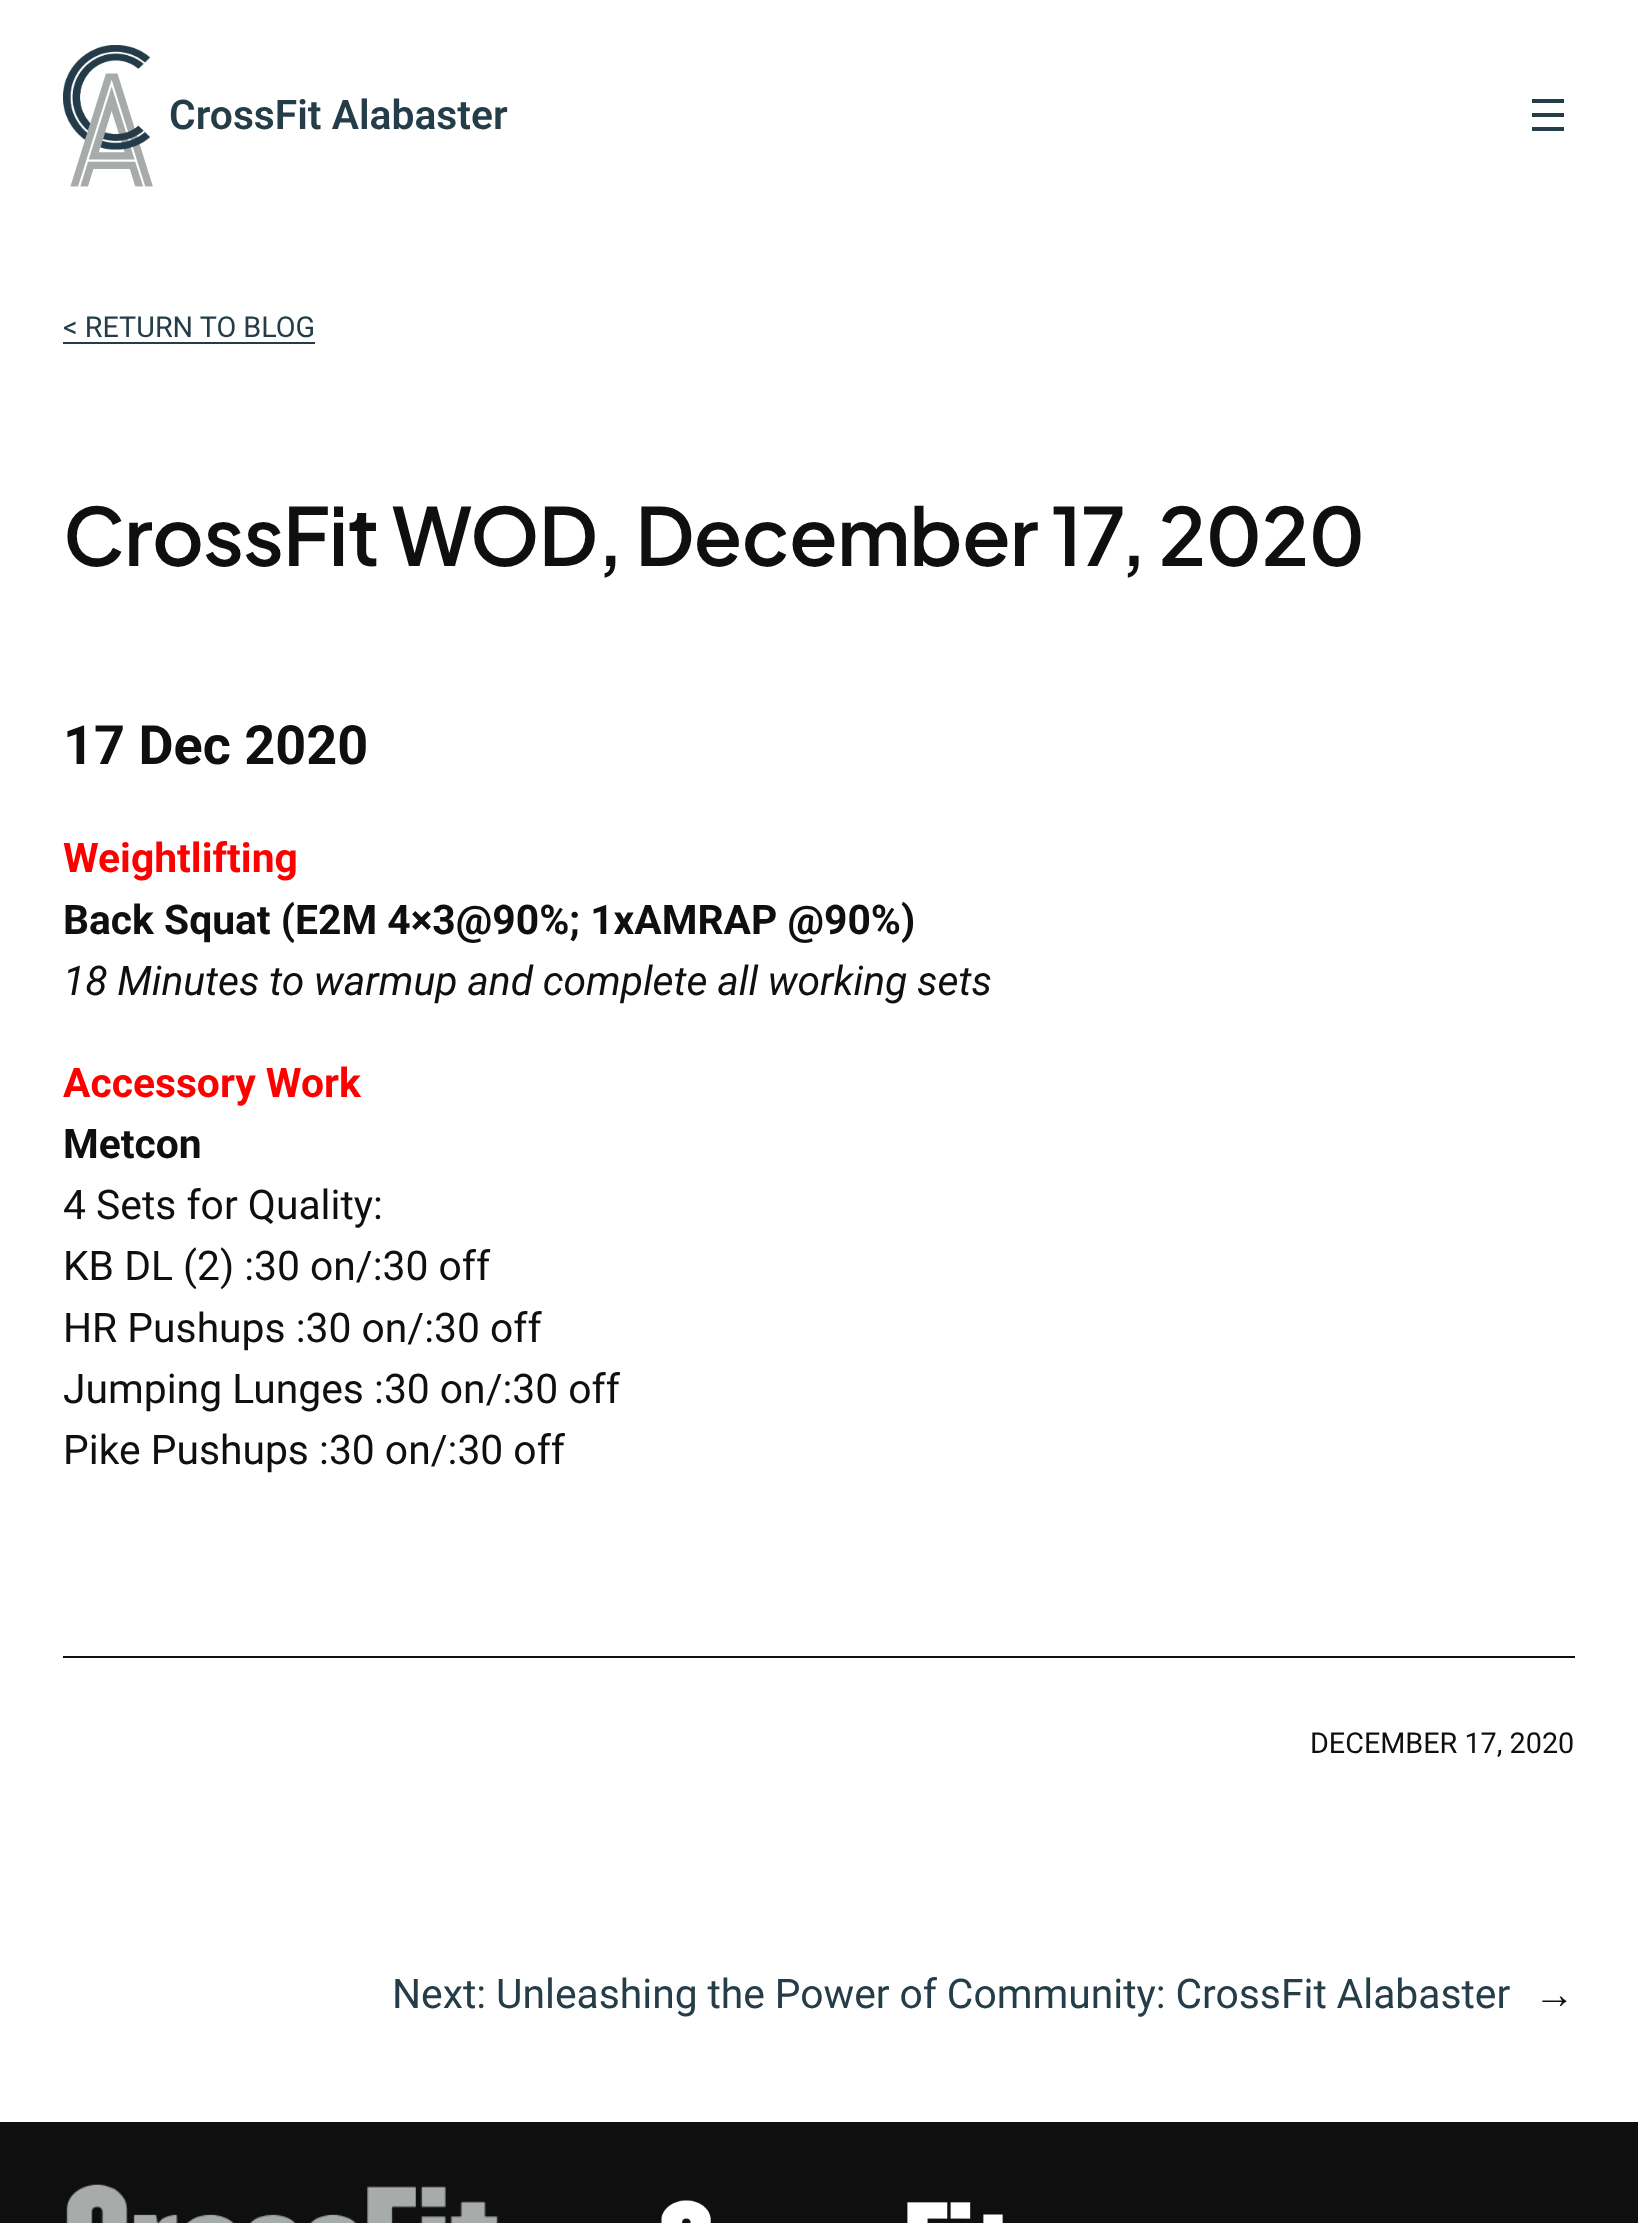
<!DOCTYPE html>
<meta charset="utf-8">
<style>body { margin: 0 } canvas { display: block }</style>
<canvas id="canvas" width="1638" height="2223"></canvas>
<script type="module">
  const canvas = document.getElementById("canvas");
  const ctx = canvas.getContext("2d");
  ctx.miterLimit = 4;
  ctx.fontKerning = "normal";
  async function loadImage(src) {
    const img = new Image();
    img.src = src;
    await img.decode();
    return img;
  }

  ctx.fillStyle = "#ffffff";
  ctx.fillRect(0, 0, 1638, 2223);
  ctx.drawImage(await loadImage("img1.png"), 63, 45, 90, 142);
  ctx.font = "600 40.8px Roboto";
  ctx.fillStyle = "#243d48";
  ctx.fillText("CrossFit Alabaster", 169, 129);
  ctx.fillRect(1532, 99, 32, 4);
  ctx.fillRect(1532, 113, 32, 4);
  ctx.fillRect(1532, 127, 32, 4);
  ctx.font = "28.75px Roboto";
  ctx.fillText("< RETURN TO BLOG", 63, 337);
  ctx.fillRect(63, 342, 252, 2);
  ctx.letterSpacing = "-0.9px";
  ctx.font = "600 79.75px Plus Jakarta Sans";
  ctx.fillStyle = "#0f0f0f";
  ctx.fillText("CrossFit WOD, December 17, 2020", 63, 566);
  ctx.letterSpacing = "0px";
  ctx.font = "bold 54px Roboto";
  ctx.fillText("17 Dec 2020", 63, 764);
  ctx.font = "bold 40.8px Roboto";
  ctx.fillStyle = "#ff0000";
  ctx.fillText("Weightlifting", 63, 872);
  ctx.fillStyle = "#0f0f0f";
  ctx.fillText("Back Squat (E2M 4×3@90%; 1xAMRAP @90%)", 63, 934);
  ctx.wordSpacing = "-0.25px";
  ctx.font = "italic 40.8px Roboto";
  ctx.fillText("18 Minutes to warmup and complete all working sets", 63, 995);
  ctx.wordSpacing = "0px";
  ctx.font = "bold 40.8px Roboto";
  ctx.fillStyle = "#ff0000";
  ctx.fillText("Accessory Work", 63, 1097);
  ctx.fillStyle = "#0f0f0f";
  ctx.fillText("Metcon", 63, 1158);
  ctx.font = "40.8px Roboto";
  ctx.fillText("4 Sets for Quality:", 63, 1219);
  ctx.fillText("KB DL (2) :30 on/:30 off", 63, 1280);
  ctx.fillText("HR Pushups :30 on/:30 off", 63, 1342);
  ctx.fillText("Jumping Lunges :30 on/:30 off", 63, 1403);
  ctx.fillText("Pike Pushups :30 on/:30 off", 63, 1464);
  ctx.fillRect(63, 1656, 1512, 2);
  ctx.font = "28.75px Roboto";
  ctx.fillText("DECEMBER 17, 2020", 1310, 1753);
  ctx.font = "40.8px Roboto";
  ctx.fillStyle = "#243d48";
  ctx.fillText("Next:", 392, 2008);
  ctx.wordSpacing = "-0.25px";
  ctx.fillText("Unleashing the Power of Community: CrossFit Alabaster", 496, 2008);
  ctx.wordSpacing = "0px";
  ctx.font = "40.8px Liberation Sans";
  ctx.fillStyle = "#0f0f0f";
  ctx.fillText("→", 1534, 2008);
  ctx.fillRect(0, 2122, 1638, 101);
  ctx.drawImage(await loadImage("img2.png"), 66, 2184, 433, 39);
  ctx.drawImage(await loadImage("img3.png"), 661, 2200, 343, 23);
</script>
